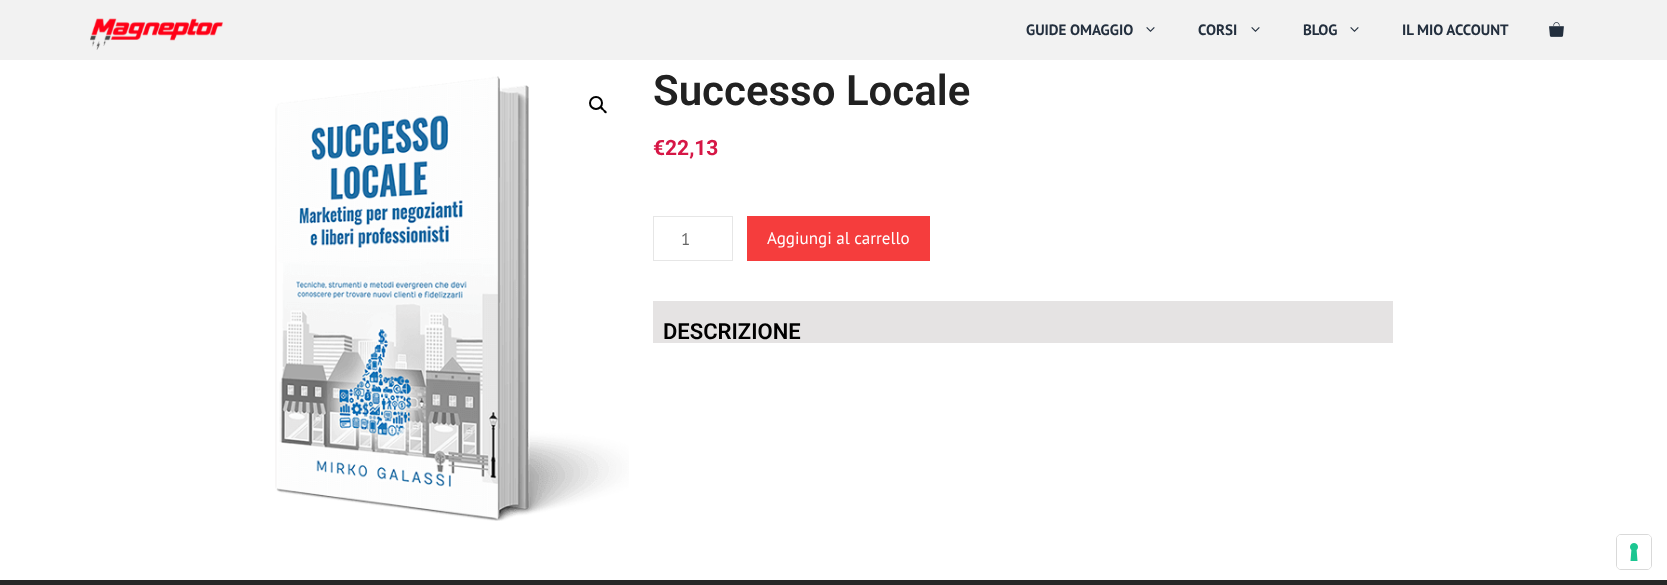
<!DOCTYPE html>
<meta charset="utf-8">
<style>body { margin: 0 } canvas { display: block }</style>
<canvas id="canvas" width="1667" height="585"></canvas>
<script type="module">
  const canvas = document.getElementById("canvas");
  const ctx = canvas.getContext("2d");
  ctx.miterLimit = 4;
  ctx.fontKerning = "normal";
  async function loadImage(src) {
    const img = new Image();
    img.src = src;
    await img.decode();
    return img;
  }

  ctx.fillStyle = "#ffffff";
  ctx.fillRect(0, 0, 1667, 585);
  ctx.fillStyle = "#f2f2f2";
  ctx.fillRect(0, 0, 1667, 60);
  ctx.drawImage(await loadImage("img1.png"), 90, 18, 133, 32);
  ctx.font = "bold 15px PT Sans";
  ctx.fillStyle = "#232f3e";
  ctx.fillText("GUIDE OMAGGIO", 1026, 35);
  ctx.drawImage(await loadImage("img2.png"), 1146, 27, 9, 5);
  ctx.fillText("CORSI", 1198, 35);
  ctx.drawImage(await loadImage("img2.png"), 1251, 27, 9, 5);
  ctx.fillText("BLOG", 1303, 35);
  ctx.drawImage(await loadImage("img2.png"), 1350, 27, 9, 5);
  ctx.fillText("IL MIO ACCOUNT", 1402, 35);
  ctx.drawImage(await loadImage("img3.png"), 1549, 22, 15, 15);
  ctx.drawImage(await loadImage("img4.png"), 275, 76, 354, 445);
  ctx.beginPath();
  ctx.arc(596, 103, 6, 0, Math.PI * 2);
  ctx.strokeStyle = "#000000";
  ctx.lineWidth = 2;
  ctx.stroke();
  ctx.fillStyle = "#000000";
  ctx.beginPath();
  ctx.moveTo(600.5, 107);
  ctx.bezierCurveTo(602, 106, 603.5, 108.5, 604, 109.5);
  ctx.bezierCurveTo(605, 110, 607.5, 111.5, 606.5, 113);
  ctx.bezierCurveTo(605, 114, 603.5, 111.5, 603, 110.5);
  ctx.bezierCurveTo(602, 110, 599.5, 108.5, 600.5, 107);
  ctx.closePath();
  ctx.fill();
  ctx.font = "600 42px Roboto";
  ctx.fillStyle = "#212121";
  ctx.fillText("Successo Locale", 653, 105);
  ctx.font = "bold 21px Roboto";
  ctx.fillStyle = "#d61746";
  ctx.fillText("€22,13", 653, 155);
  ctx.strokeStyle = "#e6e6e6";
  ctx.lineWidth = 1;
  ctx.strokeRect(653.5, 216.5, 79, 44);
  ctx.font = "17px PT Sans";
  ctx.fillStyle = "#666666";
  ctx.fillText("1", 681, 245);
  ctx.fillStyle = "#f53d3d";
  ctx.fillRect(747, 216, 183, 45);
  ctx.fillStyle = "#ffffff";
  ctx.fillText("Aggiungi al carrello", 767, 244);
  ctx.fillStyle = "#e5e3e3";
  ctx.fillRect(653, 301, 740, 42);
  ctx.font = "600 22px Roboto";
  ctx.fillStyle = "#000000";
  ctx.fillText("DESCRIZIONE", 663, 339);
  ctx.beginPath();
  ctx.roundRect(1616.5, 534.5, 35, 35, 4.5);
  ctx.strokeStyle = "#d9d9d9";
  ctx.stroke();
  ctx.fillStyle = "#ffffff";
  ctx.beginPath();
  ctx.roundRect(1617, 535, 34, 34, 4);
  ctx.fill();
  ctx.drawImage(await loadImage("img5.png"), 1630, 543, 8, 18);
  ctx.fillStyle = "#272727";
  ctx.fillRect(0, 580, 1667, 5);
</script>
